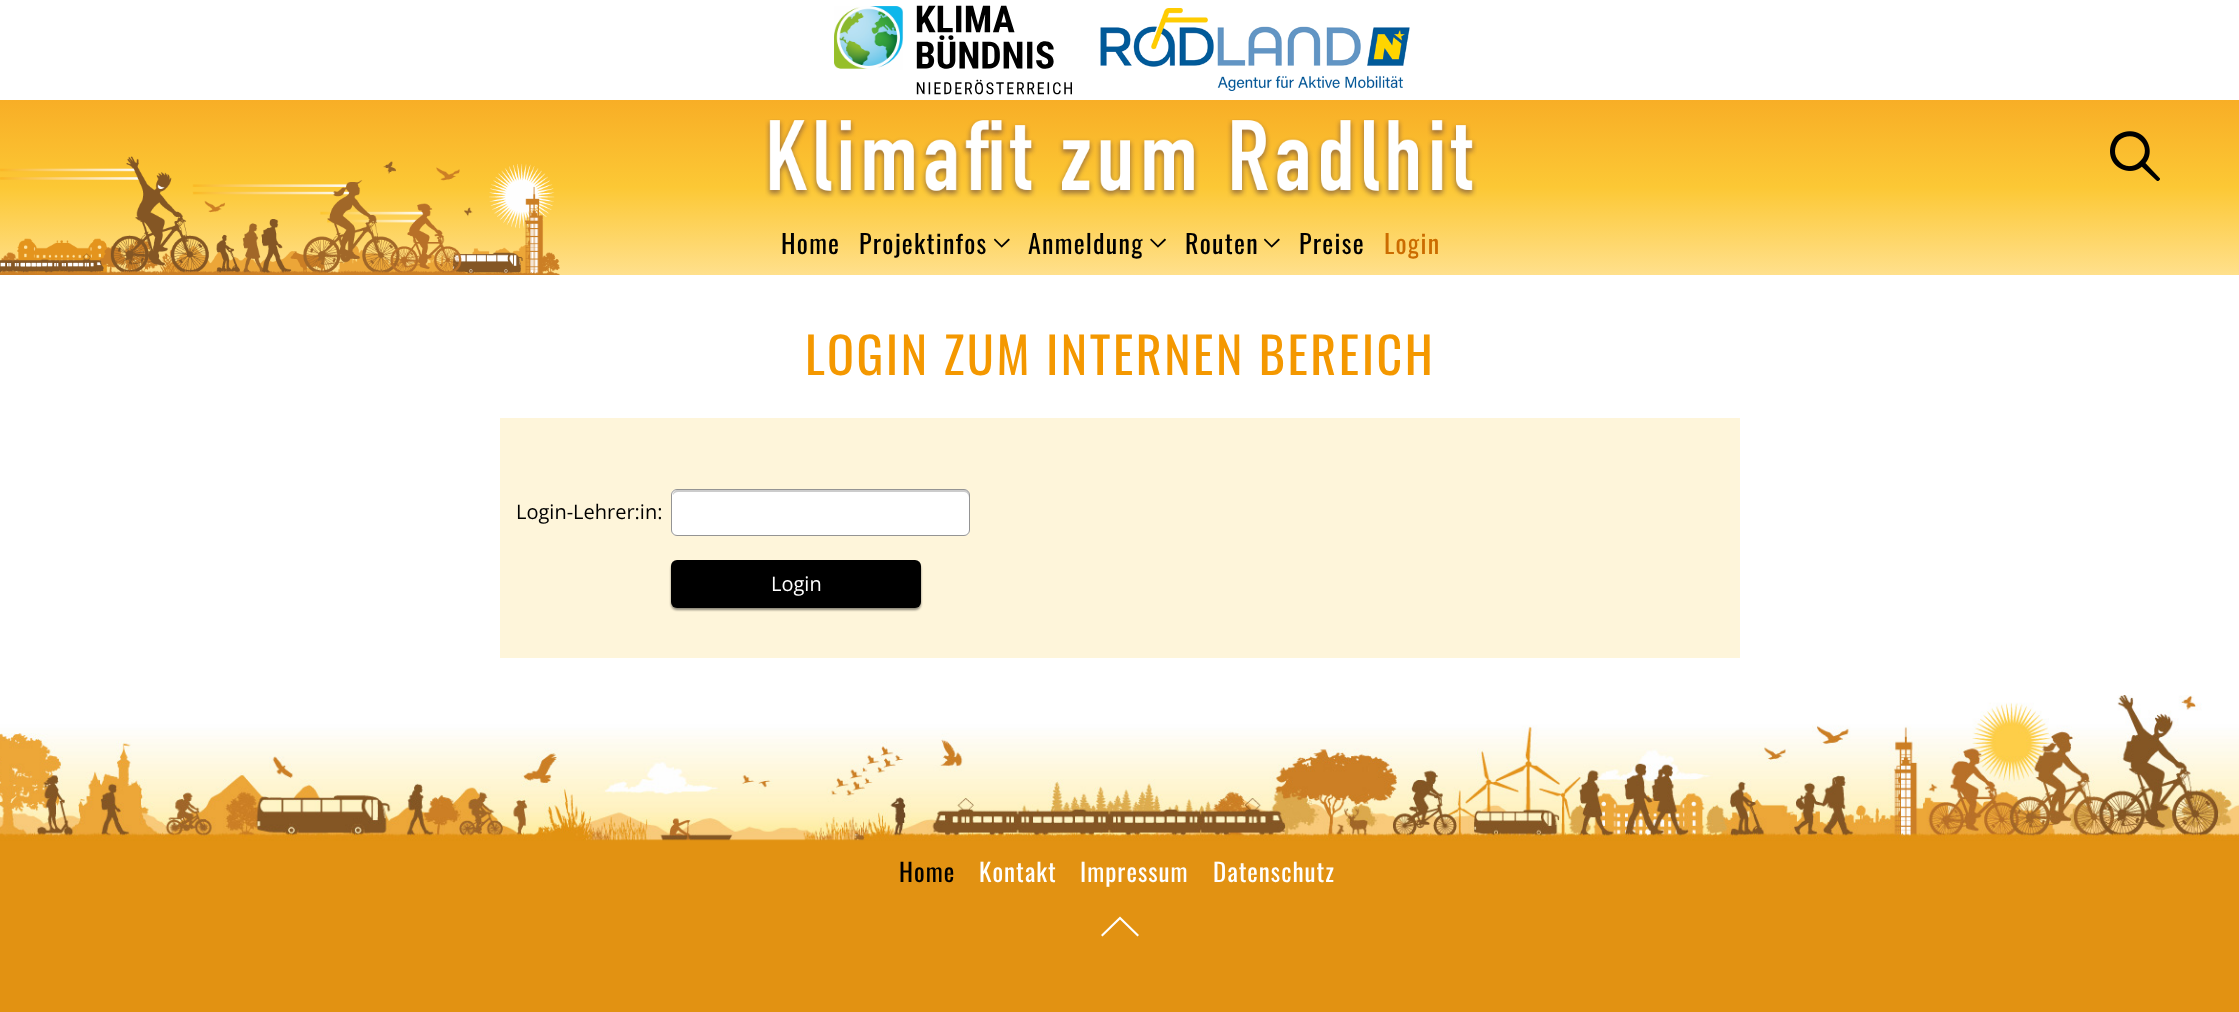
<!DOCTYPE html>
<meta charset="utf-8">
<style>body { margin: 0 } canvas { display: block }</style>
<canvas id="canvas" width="2239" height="1012"></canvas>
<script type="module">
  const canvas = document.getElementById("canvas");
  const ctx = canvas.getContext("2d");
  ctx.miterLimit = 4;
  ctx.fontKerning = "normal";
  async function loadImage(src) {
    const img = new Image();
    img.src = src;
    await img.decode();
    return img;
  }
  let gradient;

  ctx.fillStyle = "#e29212";
  ctx.fillRect(0, 0, 2239, 1012);
  ctx.fillStyle = "#ffffff";
  ctx.fillRect(0, 0, 2239, 100);
  ctx.drawImage(await loadImage("img1.png"), 834, 5, 238, 90);
  ctx.drawImage(await loadImage("img2.png"), 1100, 8, 310, 83);
  gradient = ctx.createLinearGradient(1120, 100, 1120, 275);
  gradient.addColorStop(0, "#f8ae26");
  gradient.addColorStop(0.5, "#fcc835");
  gradient.addColorStop(1, "#ffe08c");
  ctx.fillStyle = gradient;
  ctx.fillRect(0, 100, 2239, 175);
  ctx.drawImage(await loadImage("img3.png"), 0, 156, 560, 119);
  ctx.drawImage(await loadImage("img4.png"), 765, 119, 712, 79);
  ctx.drawImage(await loadImage("img5.png"), 2110, 131, 50, 50);
  ctx.letterSpacing = "1.25px";
  ctx.font = "26px Oswald";
  ctx.fillStyle = "#000000";
  ctx.fillText("Home", 781, 254);
  ctx.fillText("Projektinfos", 859, 254);
  ctx.drawImage(await loadImage("img6.png"), 994, 238, 16, 10);
  ctx.fillText("Anmeldung", 1028, 254);
  ctx.drawImage(await loadImage("img7.png"), 1150, 238, 16, 10);
  ctx.fillText("Routen", 1185, 254);
  ctx.drawImage(await loadImage("img6.png"), 1264, 238, 16, 10);
  ctx.fillText("Preise", 1299, 254);
  ctx.fillStyle = "#cb6c00";
  ctx.fillText("Login", 1384, 254);
  ctx.fillStyle = "#ffffff";
  ctx.fillRect(0, 275, 2239, 420);
  ctx.letterSpacing = "2.5px";
  ctx.font = "50px Oswald";
  ctx.fillStyle = "#f49800";
  ctx.fillText("LOGIN ZUM INTERNEN BEREICH", 805, 375);
  ctx.fillStyle = "#fef5da";
  ctx.fillRect(500, 418, 1240, 240);
  ctx.letterSpacing = "0px";
  ctx.font = "20px Open Sans";
  ctx.fillStyle = "#000000";
  ctx.fillText("Login-Lehrer:in:", 516, 519);
  ctx.fillStyle = "#ffffff";
  ctx.beginPath();
  ctx.roundRect(671, 489, 299, 47, 6);
  ctx.fill();
  ctx.fillStyle = "#cccccc";
  ctx.beginPath();
  ctx.moveTo(678, 492);
  ctx.lineTo(964, 492);
  ctx.bezierCurveTo(967, 492, 969, 495, 969, 498);
  ctx.lineTo(969, 495);
  ctx.bezierCurveTo(969, 492, 967, 490, 964, 490);
  ctx.lineTo(678, 490);
  ctx.bezierCurveTo(675, 490, 673, 492, 673, 495);
  ctx.bezierCurveTo(674, 493, 676, 492, 678, 492);
  ctx.closePath();
  ctx.fill();
  ctx.beginPath();
  ctx.roundRect(671.5, 489.5, 298, 46, 5.5);
  ctx.strokeStyle = "#949494";
  ctx.stroke();
  ctx.fillStyle = "rgba(0, 0, 0, 0.45)";
  ctx.filter = "blur(1px)";
  ctx.beginPath();
  ctx.roundRect(671, 563, 250, 47, 6);
  ctx.fill();
  ctx.filter = "none";
  ctx.fillStyle = "#000000";
  ctx.beginPath();
  ctx.roundRect(671, 560, 250, 48, 6);
  ctx.fill();
  ctx.fillStyle = "#ffffff";
  ctx.fillText("Login", 771, 591);
  ctx.drawImage(await loadImage("img8.png"), 0, 695, 2239, 146);
  ctx.letterSpacing = "1px";
  ctx.font = "25px Oswald";
  ctx.fillStyle = "#000000";
  ctx.fillText("Home", 899, 882);
  ctx.fillStyle = "#ffffff";
  ctx.fillText("Kontakt", 979, 882);
  ctx.fillText("Impressum", 1080, 882);
  ctx.fillText("Datenschutz", 1213, 882);
  ctx.beginPath();
  ctx.moveTo(1137.5, 936.5);
  ctx.lineTo(1139, 935);
  ctx.lineTo(1120, 916.5);
  ctx.lineTo(1101, 935);
  ctx.lineTo(1102.5, 936.5);
  ctx.lineTo(1120, 919.5);
  ctx.closePath();
  ctx.fill("evenodd");
</script>
